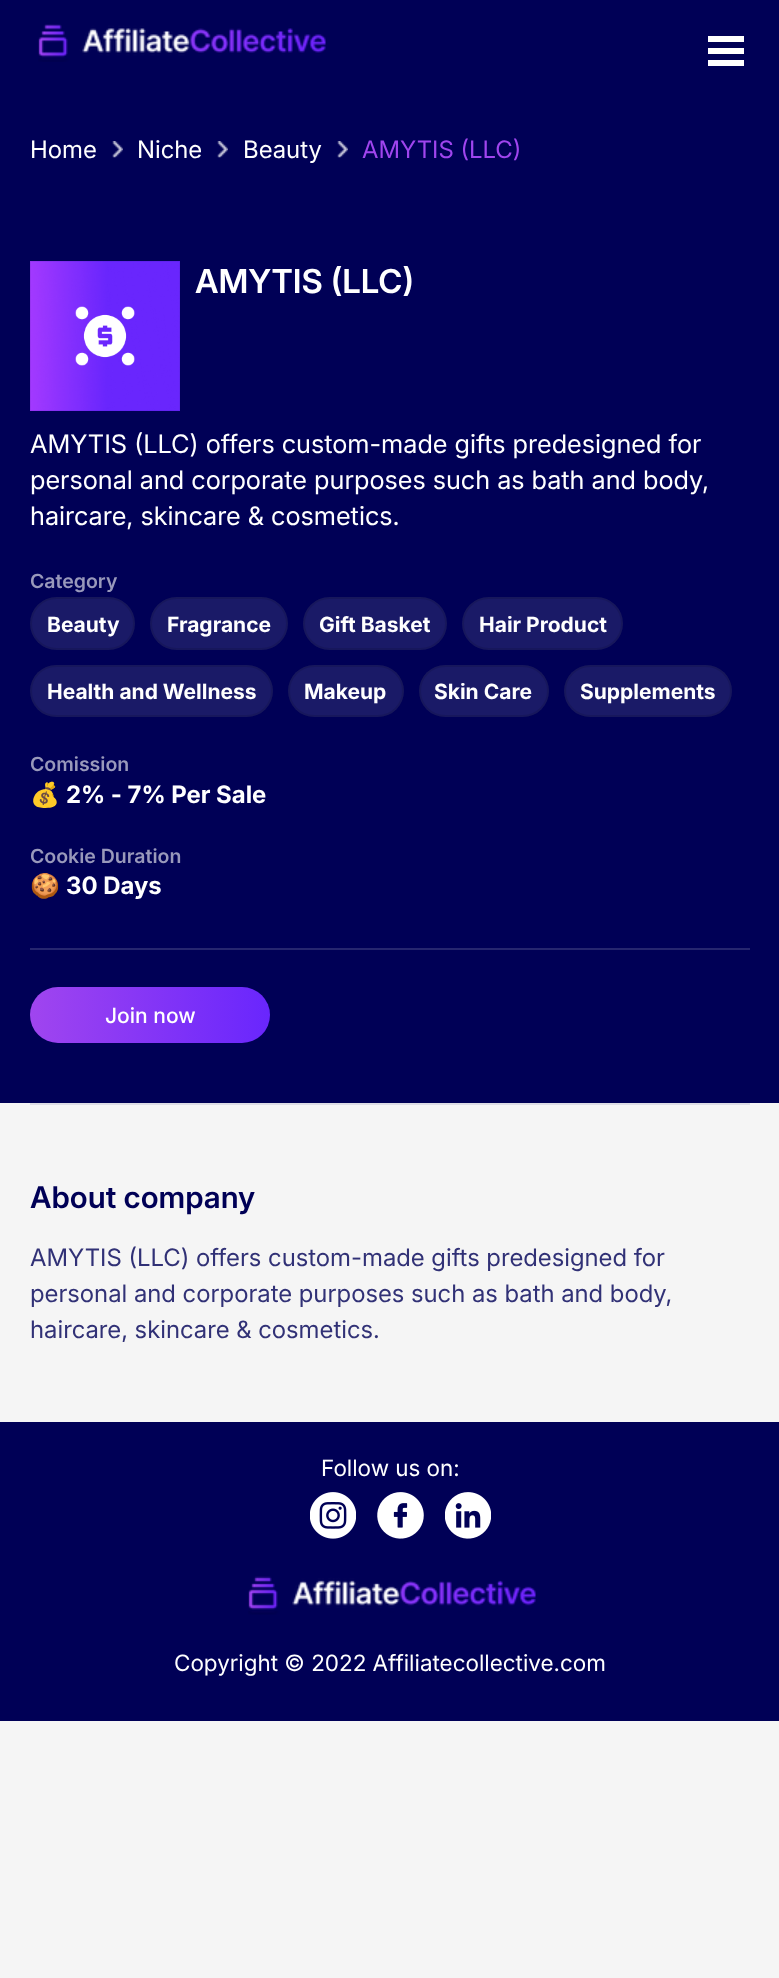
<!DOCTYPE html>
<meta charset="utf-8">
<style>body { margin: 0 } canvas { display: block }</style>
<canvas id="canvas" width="779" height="1978"></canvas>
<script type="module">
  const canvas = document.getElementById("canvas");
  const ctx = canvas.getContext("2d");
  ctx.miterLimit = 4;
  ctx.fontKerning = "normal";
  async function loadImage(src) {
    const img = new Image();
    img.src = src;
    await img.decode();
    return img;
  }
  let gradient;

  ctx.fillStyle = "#f5f5f5";
  ctx.fillRect(0, 0, 779, 1978);
  ctx.fillStyle = "#000056";
  ctx.fillRect(0, 0, 779, 1103);
  ctx.drawImage(await loadImage("img1.png"), 38, 24, 288, 38);
  ctx.fillStyle = "#ffffff";
  ctx.fillRect(708, 36, 36, 6);
  ctx.fillRect(708, 48, 36, 6);
  ctx.fillRect(708, 60, 36, 6);
  ctx.font = "24px Inter";
  ctx.fillText("Home", 30, 158);
  ctx.drawImage(await loadImage("img2.png"), 112, 141, 11, 17);
  ctx.fillText("Niche", 137, 158);
  ctx.drawImage(await loadImage("img2.png"), 217, 141, 11, 17);
  ctx.fillText("Beauty", 243, 158);
  ctx.drawImage(await loadImage("img2.png"), 337, 141, 11, 17);
  ctx.fillStyle = "#a045ef";
  ctx.fillText("AMYTIS (LLC)", 362, 158);
  ctx.drawImage(await loadImage("img3.png"), 30, 261, 150, 150);
  ctx.font = "600 33px Inter";
  ctx.fillStyle = "#ffffff";
  ctx.fillText("AMYTIS (LLC)", 195, 293);
  ctx.font = "25.5px 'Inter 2'";
  ctx.fillText("AMYTIS (LLC) offers custom-made gifts predesigned for", 30, 453);
  ctx.fillText("personal and corporate purposes such as bath and body,", 30, 489);
  ctx.fillText("haircare, skincare & cosmetics.", 30, 525);
  ctx.fillStyle = "#26266f";
  ctx.fillRect(30, 948, 720, 2);
  ctx.font = "600 19.5px 'Inter 2'";
  ctx.fillStyle = "#9999bb";
  ctx.fillText("Category", 30, 588);
  ctx.fillStyle = "#1a1a67";
  ctx.beginPath();
  ctx.roundRect(30, 597, 105, 53, 26.5);
  ctx.fill();
  ctx.beginPath();
  ctx.roundRect(31, 598, 103, 51, 25.5);
  ctx.strokeStyle = "rgba(0, 0, 0, 0.1)";
  ctx.lineWidth = 2;
  ctx.stroke();
  ctx.font = "bold 21px Inter";
  ctx.fillStyle = "#ffffff";
  ctx.fillText("Beauty", 47, 632);
  ctx.fillStyle = "#1a1a67";
  ctx.beginPath();
  ctx.roundRect(150, 597, 138, 53, 26.5);
  ctx.fill();
  ctx.beginPath();
  ctx.roundRect(151, 598, 136, 51, 25.5);
  ctx.stroke();
  ctx.fillStyle = "#ffffff";
  ctx.fillText("Fragrance", 167, 632);
  ctx.fillStyle = "#1a1a67";
  ctx.beginPath();
  ctx.roundRect(303, 597, 144, 53, 26.5);
  ctx.fill();
  ctx.beginPath();
  ctx.roundRect(304, 598, 142, 51, 25.5);
  ctx.stroke();
  ctx.fillStyle = "#ffffff";
  ctx.fillText("Gift Basket", 319, 632);
  ctx.fillStyle = "#1a1a67";
  ctx.beginPath();
  ctx.roundRect(462, 597, 161, 53, 26.5);
  ctx.fill();
  ctx.beginPath();
  ctx.roundRect(463, 598, 159, 51, 25.5);
  ctx.stroke();
  ctx.fillStyle = "#ffffff";
  ctx.fillText("Hair Product", 479, 632);
  ctx.fillStyle = "#1a1a67";
  ctx.beginPath();
  ctx.roundRect(30, 665, 243, 52, 26);
  ctx.fill();
  ctx.beginPath();
  ctx.roundRect(31, 666, 241, 50, 25);
  ctx.stroke();
  ctx.fillStyle = "#ffffff";
  ctx.fillText("Health and Wellness", 47, 699);
  ctx.fillStyle = "#1a1a67";
  ctx.beginPath();
  ctx.roundRect(288, 665, 116, 52, 26);
  ctx.fill();
  ctx.beginPath();
  ctx.roundRect(289, 666, 114, 50, 25);
  ctx.stroke();
  ctx.fillStyle = "#ffffff";
  ctx.fillText("Makeup", 304, 699);
  ctx.fillStyle = "#1a1a67";
  ctx.beginPath();
  ctx.roundRect(419, 665, 130, 52, 26);
  ctx.fill();
  ctx.beginPath();
  ctx.roundRect(420, 666, 128, 50, 25);
  ctx.stroke();
  ctx.fillStyle = "#ffffff";
  ctx.fillText("Skin Care", 434, 699);
  ctx.fillStyle = "#1a1a67";
  ctx.beginPath();
  ctx.roundRect(564, 665, 168, 52, 26);
  ctx.fill();
  ctx.beginPath();
  ctx.roundRect(565, 666, 166, 50, 25);
  ctx.stroke();
  ctx.fillStyle = "#ffffff";
  ctx.fillText("Supplements", 580, 699);
  ctx.font = "600 19.5px 'Inter 2'";
  ctx.fillStyle = "#9999bb";
  ctx.fillText("Comission", 30, 771);
  ctx.font = "bold 24px Noto Color Emoji";
  ctx.fillStyle = "#ffffff";
  ctx.fillText("💰", 30, 803);
  ctx.font = "bold 24px 'Inter 2'";
  ctx.fillText("2% - 7% Per Sale", 66, 803);
  ctx.font = "600 19.5px 'Inter 2'";
  ctx.fillStyle = "#9999bb";
  ctx.fillText("Cookie Duration", 30, 863);
  ctx.font = "bold 24px Noto Color Emoji";
  ctx.fillStyle = "#ffffff";
  ctx.fillText("🍪", 30, 894);
  ctx.font = "bold 24px 'Inter 2'";
  ctx.fillText("30 Days", 66, 894);
  gradient = ctx.createLinearGradient(30, 1015, 270, 1015);
  gradient.addColorStop(0, "#a045ef");
  gradient.addColorStop(1, "#6926fd");
  ctx.fillStyle = gradient;
  ctx.beginPath();
  ctx.roundRect(30, 987, 240, 56, 28);
  ctx.fill();
  ctx.font = "500 21px Inter";
  ctx.fillStyle = "#ffffff";
  ctx.fillText("Join now", 105, 1023);
  ctx.fillStyle = "#dddde5";
  ctx.fillRect(30, 1103, 720, 2);
  ctx.font = "600 30px 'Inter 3'";
  ctx.fillStyle = "#000056";
  ctx.fillText("About company", 30, 1208);
  ctx.font = "24px Inter";
  ctx.fillStyle = "#313176";
  ctx.fillText("AMYTIS (LLC) offers custom-made gifts predesigned for", 30, 1266);
  ctx.fillText("personal and corporate purposes such as bath and body,", 30, 1302);
  ctx.fillText("haircare, skincare & cosmetics.", 30, 1338);
  ctx.fillStyle = "#000056";
  ctx.fillRect(0, 1422, 779, 299);
  ctx.font = "22.5px 'Inter 3'";
  ctx.fillStyle = "#ffffff";
  ctx.fillText("Follow us on:", 321, 1476);
  ctx.drawImage(await loadImage("img4.png"), 310, 1492, 46, 47);
  ctx.drawImage(await loadImage("img5.png"), 377, 1492, 47, 47);
  ctx.drawImage(await loadImage("img6.png"), 445, 1492, 46, 47);
  ctx.drawImage(await loadImage("img7.png"), 248, 1576, 288, 39);
  ctx.fillText("Copyright © 2022 Affiliatecollective.com", 174, 1671);
</script>
